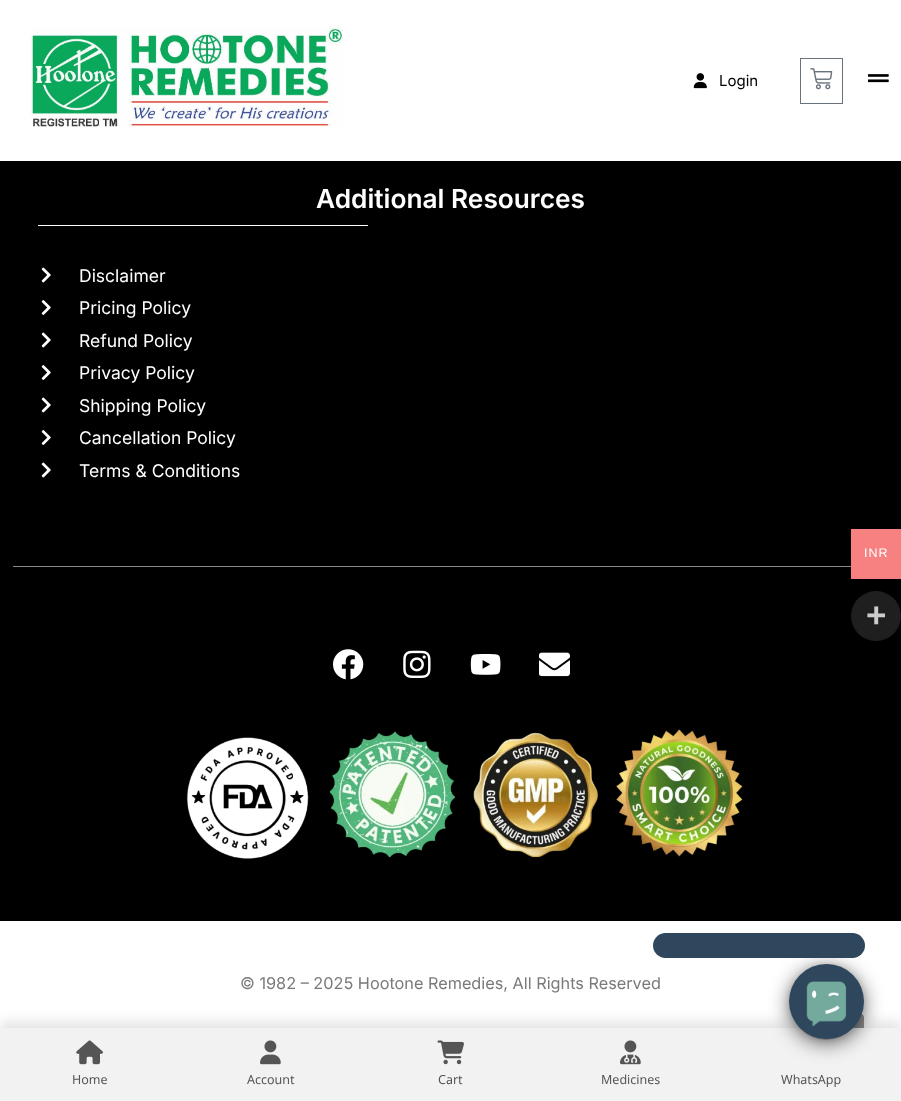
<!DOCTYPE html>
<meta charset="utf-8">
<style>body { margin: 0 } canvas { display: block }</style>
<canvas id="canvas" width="901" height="1101"></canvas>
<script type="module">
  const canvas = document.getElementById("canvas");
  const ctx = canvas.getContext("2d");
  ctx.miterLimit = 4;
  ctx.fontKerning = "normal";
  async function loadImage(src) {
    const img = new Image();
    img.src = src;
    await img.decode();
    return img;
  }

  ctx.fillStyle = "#000000";
  ctx.fillRect(0, 0, 901, 1101);
  ctx.fillStyle = "#ffffff";
  ctx.fillRect(0, 0, 901, 161);
  ctx.drawImage(await loadImage("img1.png"), 30, 27, 313, 100);
  ctx.drawImage(await loadImage("img2.png"), 693, 73, 14, 16);
  ctx.font = "15px Inter";
  ctx.fillStyle = "#000000";
  ctx.fillText("Login", 719, 86);
  ctx.strokeStyle = "#69727d";
  ctx.strokeRect(800.5, 58.5, 42, 45);
  ctx.drawImage(await loadImage("img3.png"), 810, 68, 23, 22);
  ctx.drawImage(await loadImage("img4.png"), 868, 74, 21, 9);
  ctx.font = "600 26.25px Inter";
  ctx.fillStyle = "#ffffff";
  ctx.fillText("Additional Resources", 316, 208);
  ctx.fillRect(38, 225, 330, 1);
  ctx.drawImage(await loadImage("img5.png"), 41, 267, 10, 16);
  ctx.font = "17.5px Inter";
  ctx.fillText("Disclaimer", 79, 282);
  ctx.drawImage(await loadImage("img6.png"), 41, 300, 10, 15);
  ctx.fillText("Pricing Policy", 79, 314);
  ctx.drawImage(await loadImage("img5.png"), 41, 332, 10, 16);
  ctx.fillText("Refund Policy", 79, 347);
  ctx.drawImage(await loadImage("img6.png"), 41, 365, 10, 15);
  ctx.fillText("Privacy Policy", 79, 379);
  ctx.drawImage(await loadImage("img5.png"), 41, 397, 10, 16);
  ctx.fillText("Shipping Policy", 79, 412);
  ctx.drawImage(await loadImage("img6.png"), 41, 430, 10, 15);
  ctx.fillText("Cancellation Policy", 79, 444);
  ctx.drawImage(await loadImage("img5.png"), 41, 462, 10, 16);
  ctx.fillText("Terms & Conditions", 79, 477);
  ctx.fillStyle = "#8b8b8b";
  ctx.fillRect(13, 566, 838, 1);
  ctx.drawImage(await loadImage("img7.png"), 333, 649, 31, 31);
  ctx.drawImage(await loadImage("img8.png"), 403, 650, 28, 29);
  ctx.drawImage(await loadImage("img9.png"), 470, 653, 31, 22);
  ctx.drawImage(await loadImage("img10.png"), 539, 652, 31, 25);
  ctx.drawImage(await loadImage("img11.png"), 186, 729, 557, 130);
  ctx.fillStyle = "#ffffff";
  ctx.fillRect(0, 921, 901, 107);
  ctx.font = "16.25px Inter";
  ctx.fillStyle = "#7a7a7a";
  ctx.fillText("© 1982 – 2025 Hootone Remedies, All Rights Reserved", 240, 989);
  ctx.fillStyle = "#f78080";
  ctx.fillRect(851, 529, 50, 50);
  ctx.letterSpacing = "1px";
  ctx.font = "12.5px Liberation Sans";
  ctx.fillStyle = "#ffffff";
  ctx.fillText("INR", 864, 557);
  ctx.fillStyle = "#1f1f1f";
  ctx.beginPath();
  ctx.arc(876, 616, 25, 0, Math.PI * 2);
  ctx.fill();
  ctx.letterSpacing = "0px";
  ctx.font = "bold 35px Liberation Sans";
  ctx.fillStyle = "#cccccc";
  ctx.fillText("+", 866, 627);
  ctx.fillStyle = "#999999";
  ctx.beginPath();
  ctx.roundRect(814, 1014, 50, 50, 4);
  ctx.fill();
  ctx.fillStyle = "rgba(0, 0, 0, 0.1)";
  ctx.filter = "blur(6px)";
  ctx.beginPath();
  ctx.rect(0, 1021, 901, 74);
  ctx.fill();
  ctx.filter = "none";
  ctx.fillStyle = "#f2f2f2";
  ctx.fillRect(0, 1028, 901, 73);
  ctx.fillStyle = "rgba(0, 0, 0, 0.12)";
  ctx.filter = "blur(3px)";
  ctx.beginPath();
  ctx.roundRect(789, 965, 75, 75, 37.5);
  ctx.fill();
  ctx.filter = "none";
  ctx.fillStyle = "rgba(0, 0, 0, 0.2)";
  ctx.filter = "blur(0.5px)";
  ctx.beginPath();
  ctx.roundRect(791, 970, 70, 70, 35);
  ctx.fill();
  ctx.filter = "none";
  ctx.fillStyle = "rgba(0, 0, 0, 0.6)";
  ctx.filter = "blur(10px)";
  ctx.beginPath();
  ctx.roundRect(789, 968, 75, 75, 37.5);
  ctx.fill();
  ctx.filter = "none";
  ctx.fillStyle = "#2e475d";
  ctx.beginPath();
  ctx.arc(826.5, 1001.5, 37.5, 0, Math.PI * 2);
  ctx.fill();
  ctx.beginPath();
  ctx.roundRect(653, 933, 212, 25, 12.5);
  ctx.fill();
  ctx.drawImage(await loadImage("img12.png"), 806, 981, 41, 46);
  ctx.drawImage(await loadImage("img13.png"), 76, 1040, 27, 25);
  ctx.font = "12.5px Noto Sans";
  ctx.fillStyle = "#555555";
  ctx.fillText("Home", 72, 1084);
  ctx.drawImage(await loadImage("img14.png"), 260, 1040, 21, 25);
  ctx.fillText("Account", 247, 1084);
  ctx.drawImage(await loadImage("img15.png"), 437, 1040, 27, 25);
  ctx.fillText("Cart", 438, 1084);
  ctx.drawImage(await loadImage("img16.png"), 620, 1040, 21, 25);
  ctx.fillText("Medicines", 601, 1084);
  ctx.fillText("WhatsApp", 781, 1084);
</script>
